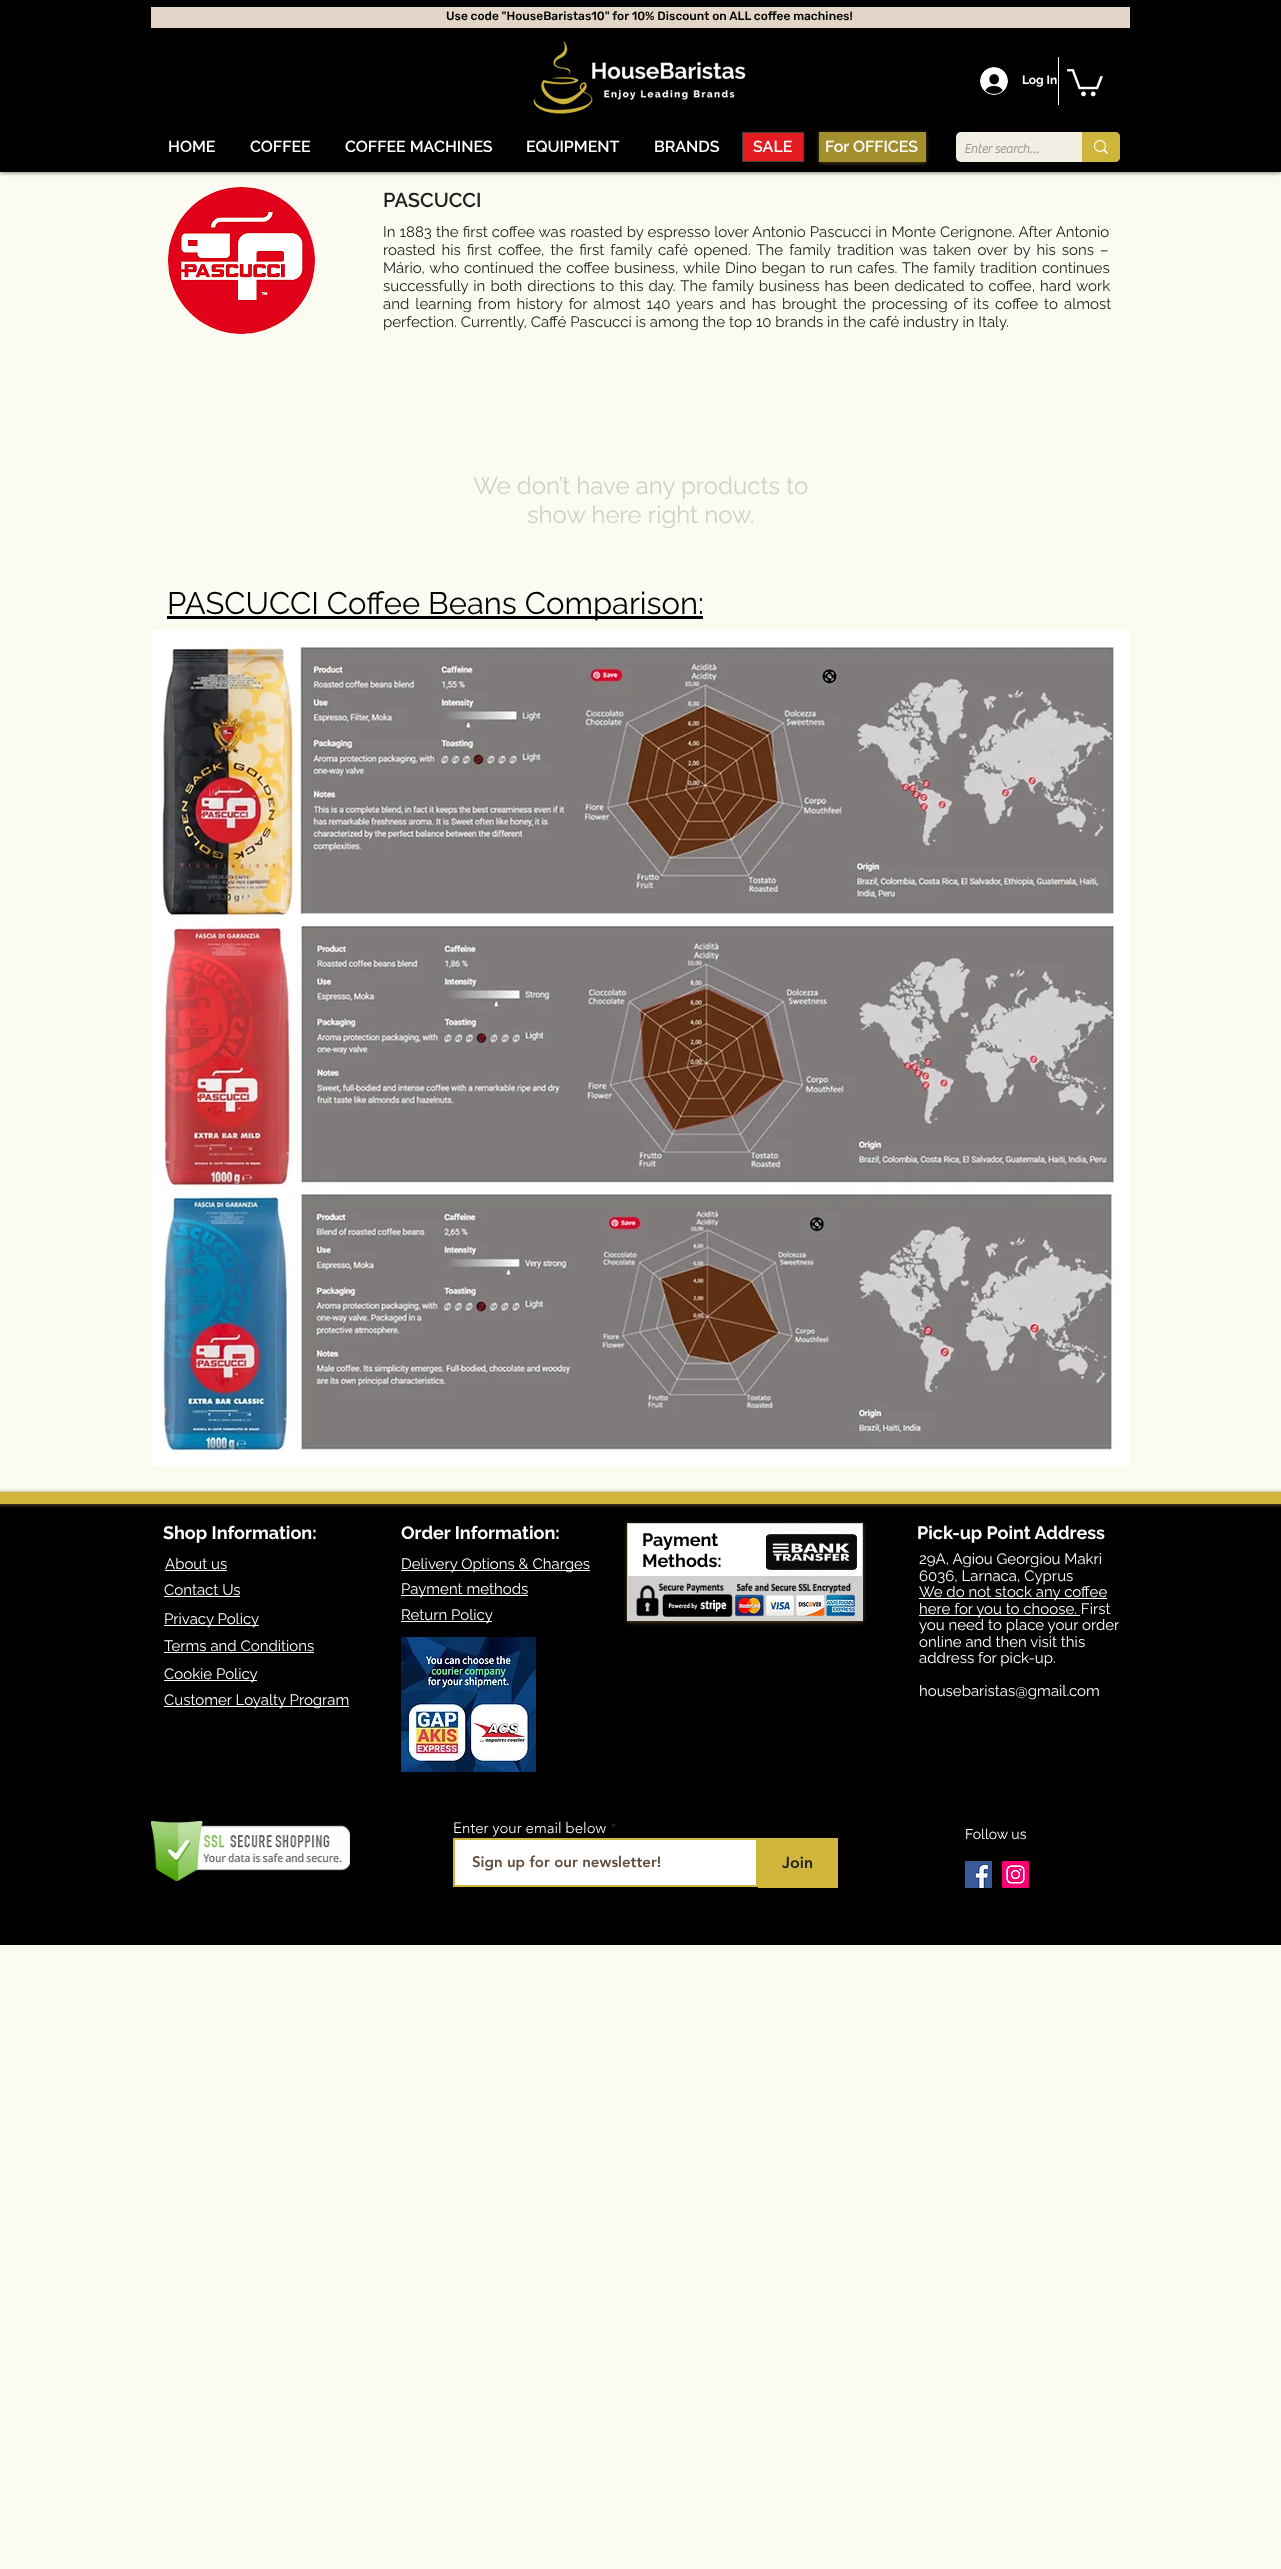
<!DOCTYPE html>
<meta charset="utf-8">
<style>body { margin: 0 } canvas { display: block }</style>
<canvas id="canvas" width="1281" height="2569"></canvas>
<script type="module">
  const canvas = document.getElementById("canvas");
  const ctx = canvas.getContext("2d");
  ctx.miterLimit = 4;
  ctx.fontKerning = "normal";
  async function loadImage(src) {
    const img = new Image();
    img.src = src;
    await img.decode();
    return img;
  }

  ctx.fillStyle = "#fcfbf2";
  ctx.fillRect(0, 0, 1281, 2569);
  ctx.fillStyle = "rgba(0, 0, 0, 0.7)";
  ctx.filter = "blur(2.5px)";
  ctx.beginPath();
  ctx.rect(0, 0, 1281, 172);
  ctx.fill();
  ctx.filter = "none";
  ctx.fillStyle = "#000000";
  ctx.fillRect(0, 0, 1281, 172);
  ctx.fillStyle = "#e3d5c8";
  ctx.fillRect(151, 7, 979, 21);
  ctx.font = "500 12px Rubik";
  ctx.fillStyle = "#000000";
  ctx.fillText("Use code \"HouseBaristas10\" for 10% Discount on ALL coffee machines!", 446, 20);
  ctx.drawImage(await loadImage("img1.png"), 533, 41, 213, 73);
  ctx.drawImage(await loadImage("img2.png"), 980, 67, 28, 28);
  ctx.font = "bold 12px Raleway";
  ctx.fillStyle = "#ffffff";
  ctx.fillText("Log In", 1022, 84);
  ctx.fillRect(1058, 57, 1, 48);
  ctx.drawImage(await loadImage("img3.png"), 1067, 69, 36, 28);
  ctx.fillStyle = "#e21c21";
  ctx.beginPath();
  ctx.rect(742.5, 132.5, 61, 29);
  ctx.fill();
  ctx.strokeStyle = "#43423f";
  ctx.stroke();
  ctx.fillStyle = "#5e4a20";
  ctx.filter = "blur(2px)";
  ctx.beginPath();
  ctx.rect(819, 133, 107, 30);
  ctx.fill();
  ctx.filter = "none";
  ctx.fillStyle = "#a48f2f";
  ctx.fillRect(819, 132, 107, 30);
  ctx.font = "600 16px Raleway";
  ctx.fillStyle = "#ffffff";
  ctx.fillText("HOME", 168, 152);
  ctx.fillText("COFFEE", 250, 152);
  ctx.fillText("COFFEE MACHINES", 345, 152);
  ctx.fillText("EQUIPMENT", 526, 152);
  ctx.fillText("BRANDS", 654, 152);
  ctx.fillText("SALE", 753, 152);
  ctx.fillText("For OFFICES", 825, 152);
  ctx.fillStyle = "#f2eee4";
  ctx.beginPath();
  ctx.roundRect(956, 132, 164, 30, 5);
  ctx.fill();
  ctx.font = "bold 13px 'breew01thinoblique'";
  ctx.fillStyle = "#999999";
  ctx.fillText("Enter search…", 964, 153);
  ctx.fillStyle = "#cfb53b";
  ctx.beginPath();
  ctx.roundRect(1082, 132, 38, 30, [0, 5, 5, 0]);
  ctx.fill();
  ctx.drawImage(await loadImage("img4.png"), 1094, 140, 14, 14);
  ctx.drawImage(await loadImage("img5.png"), 168, 187, 147, 147);
  ctx.font = "600 20px Raleway";
  ctx.fillStyle = "#222120";
  ctx.fillText("PASCUCCI", 383, 207);
  ctx.wordSpacing = "0.3px";
  ctx.font = "15px Raleway";
  ctx.fillText("In 1883 the first coffee was roasted by espresso lover Antonio Pascucci in Monte Cerignone. After Antonio", 383, 237);
  ctx.wordSpacing = "2.25px";
  ctx.fillText("roasted his first coffee, the first family café opened. The family tradition was taken over by his sons –", 383, 255);
  ctx.wordSpacing = "1.1px";
  ctx.fillText("Mário, who continued the coffee business, while Dino began to run cafes. The family tradition continues", 383, 273);
  ctx.wordSpacing = "1.25px";
  ctx.fillText("successfully in both directions to this day. The family business has been dedicated to coffee, hard work", 383, 291);
  ctx.wordSpacing = "2.25px";
  ctx.fillText("and learning from history for almost 140 years and has brought the processing of its coffee to almost", 383, 309);
  ctx.wordSpacing = "0px";
  ctx.fillText("perfection. Currently, Caffé Pascucci is among the top 10 brands in the café industry in Italy.", 383, 327);
  ctx.font = "24px Raleway";
  ctx.fillStyle = "#d0cfcd";
  ctx.fillText("We don’t have any products to", 473, 494);
  ctx.fillText("show here right now.", 527, 523);
  ctx.fillStyle = "#000000";
  ctx.fillRect(167, 616, 536, 3);
  ctx.font = "31px Raleway";
  ctx.fillText("PASCUCCI Coffee Beans Comparison:", 167, 614);
  ctx.drawImage(await loadImage("img6.png"), 151, 630, 979, 836);
  ctx.fillRect(0, 1504, 1281, 441);
  ctx.fillStyle = "#5e4a20";
  ctx.filter = "blur(2px)";
  ctx.beginPath();
  ctx.rect(-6, 1493, 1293, 12);
  ctx.fill();
  ctx.filter = "none";
  ctx.fillStyle = "#cfb53b";
  ctx.fillRect(0, 1492, 1281, 12);
  ctx.font = "bold 18px 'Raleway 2'";
  ctx.fillStyle = "#ffffff";
  ctx.fillText("Shop Information:", 163, 1539);
  ctx.font = "15px Raleway";
  ctx.fillText("About us", 165, 1569);
  ctx.fillRect(165, 1570, 62, 1);
  ctx.fillText("Contact Us", 164, 1595);
  ctx.fillRect(164, 1596, 76, 1);
  ctx.fillRect(164, 1625, 95, 1);
  ctx.fillText("Privacy Policy", 164, 1624);
  ctx.fillText("Terms and Conditions", 164, 1651);
  ctx.fillRect(164, 1652, 150, 1);
  ctx.fillRect(164, 1680, 93, 1);
  ctx.fillText("Cookie Policy", 164, 1679);
  ctx.fillRect(164, 1706, 185, 1);
  ctx.fillText("Customer Loyalty Program", 164, 1705);
  ctx.font = "bold 18px 'Raleway 2'";
  ctx.fillText("Order Information:", 401, 1539);
  ctx.fillStyle = "#5e4a20";
  ctx.filter = "blur(2px)";
  ctx.beginPath();
  ctx.rect(627, 1524, 236, 98);
  ctx.fill();
  ctx.filter = "none";
  ctx.fillStyle = "#ffffff";
  ctx.fillRect(628, 1524, 234, 52);
  ctx.strokeStyle = "#d0cfcd";
  ctx.strokeRect(627.5, 1523.5, 235, 97);
  ctx.fillStyle = "#000000";
  ctx.fillText("Payment", 642, 1546);
  ctx.fillText("Methods:", 642, 1567);
  ctx.fillStyle = "#d0cfcd";
  ctx.fillRect(628, 1576, 234, 44);
  ctx.drawImage(await loadImage("img7.png"), 766, 1524, 91, 56);
  ctx.drawImage(await loadImage("img8.png"), 636, 1583, 219, 34);
  ctx.fillStyle = "#ffffff";
  ctx.fillText("Pick-up Point Address", 917, 1539);
  ctx.font = "15px Raleway";
  ctx.fillText("29A, Agiou Georgiou Makri", 919, 1564);
  ctx.fillText("6036, Larnaca, Cyprus", 919, 1581);
  ctx.fillRect(919, 1598, 188, 1);
  ctx.fillText("We do not stock any coffee", 919, 1597);
  ctx.fillRect(919, 1615, 161, 1);
  ctx.fillText("here for you to choose. First", 919, 1614);
  ctx.fillText("you need to place your order", 919, 1630);
  ctx.fillText("online and then visit this", 919, 1647);
  ctx.fillText("address for pick-up.", 919, 1663);
  ctx.fillText("housebaristas@gmail.com", 919, 1696);
  ctx.fillRect(401, 1570, 189, 1);
  ctx.fillText("Delivery Options & Charges", 401, 1569);
  ctx.fillRect(401, 1595, 127, 1);
  ctx.fillText("Payment methods", 401, 1594);
  ctx.fillRect(401, 1621, 91, 1);
  ctx.fillText("Return Policy", 401, 1620);
  ctx.drawImage(await loadImage("img9.png"), 401, 1637, 135, 135);
  ctx.drawImage(await loadImage("img10.png"), 151, 1821, 199, 60);
  ctx.font = "300 15px 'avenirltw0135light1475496'";
  ctx.fillText("Enter your email below", 453, 1833);
  ctx.fillStyle = "#2f261e";
  ctx.fillText("*", 610, 1833);
  ctx.fillStyle = "#ffffff";
  ctx.beginPath();
  ctx.rect(454, 1839, 303, 47);
  ctx.fill();
  ctx.strokeStyle = "#cfb53b";
  ctx.lineWidth = 2;
  ctx.stroke();
  ctx.font = "900 15px 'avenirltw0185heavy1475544'";
  ctx.fillStyle = "#5e4d3d";
  ctx.fillText("Sign up for our newsletter!", 472, 1867);
  ctx.fillStyle = "#cfb53b";
  ctx.fillRect(758, 1838, 80, 50);
  ctx.font = "900 16px 'avenirltw0185heavy1475544'";
  ctx.fillStyle = "#222120";
  ctx.fillText("Join", 782, 1868);
  ctx.font = "14px Raleway";
  ctx.fillStyle = "#ffffff";
  ctx.fillText("Follow us", 965, 1839);
  ctx.drawImage(await loadImage("img11.png"), 965, 1861, 27, 27);
  ctx.drawImage(await loadImage("img12.png"), 1002, 1861, 27, 27);
</script>
